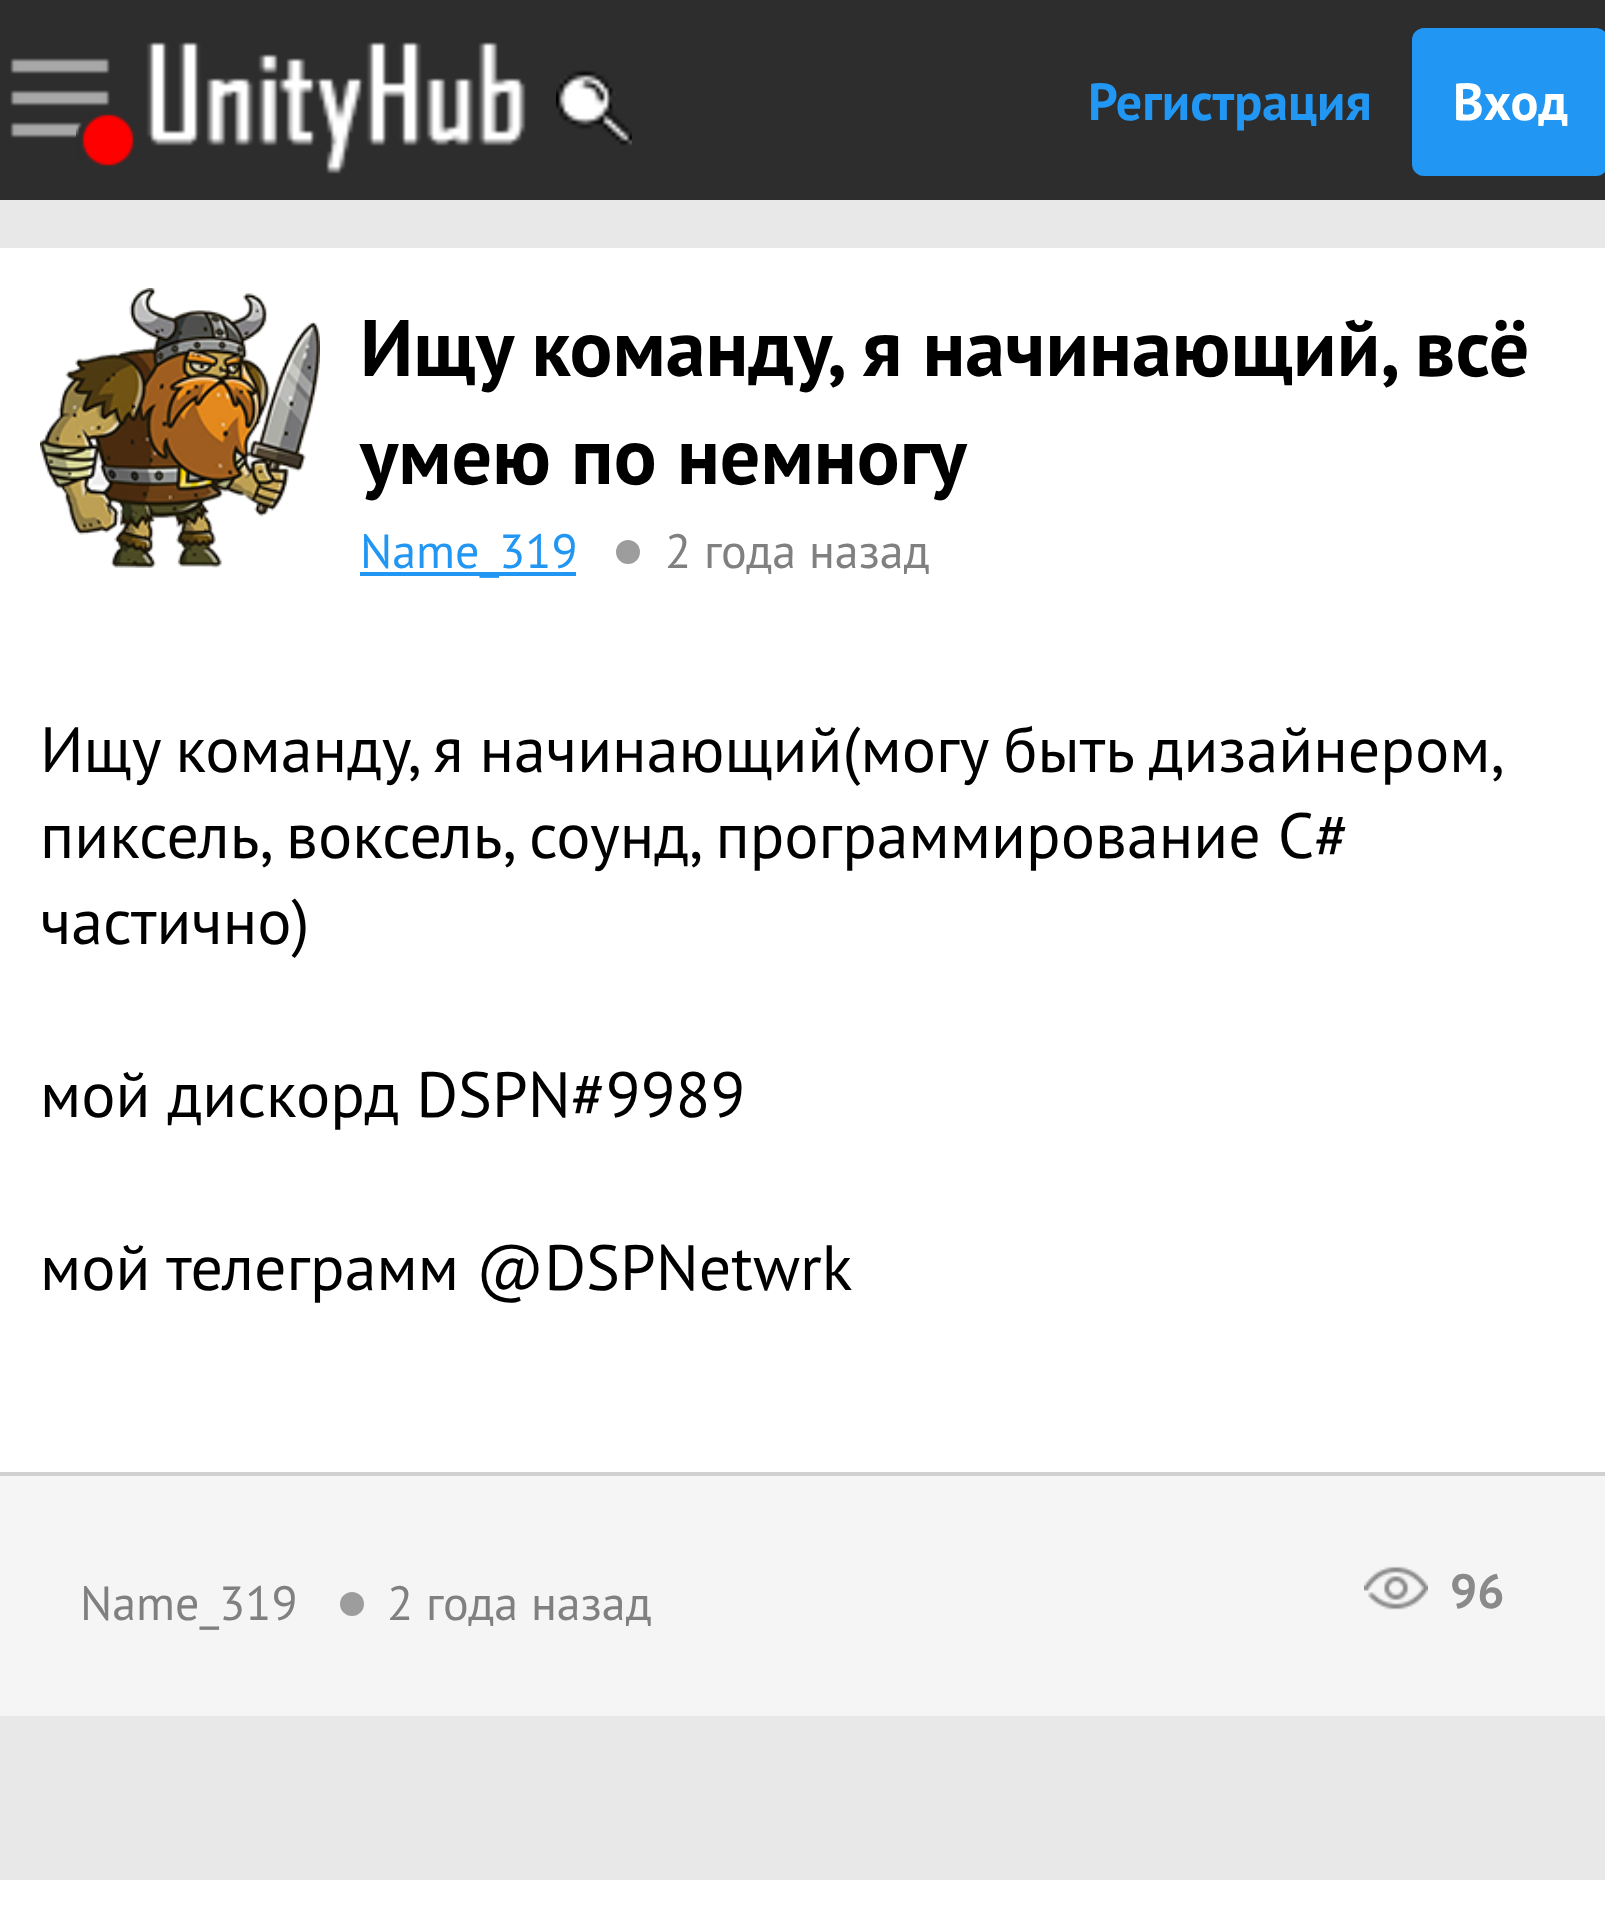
<!DOCTYPE html>
<meta charset="utf-8">
<style>body { margin: 0 } canvas { display: block }</style>
<canvas id="canvas" width="1605" height="1927"></canvas>
<script type="module">
  const canvas = document.getElementById("canvas");
  const ctx = canvas.getContext("2d");
  ctx.miterLimit = 4;
  ctx.fontKerning = "normal";
  async function loadImage(src) {
    const img = new Image();
    img.src = src;
    await img.decode();
    return img;
  }

  ctx.fillStyle = "#e8e8e8";
  ctx.fillRect(0, 0, 1605, 1927);
  ctx.fillStyle = "#2d2d2d";
  ctx.fillRect(0, 0, 1605, 200);
  ctx.drawImage(await loadImage("img1.png"), 10, 58, 100, 80);
  ctx.drawImage(await loadImage("img2.png"), 76, 114, 58, 52);
  ctx.drawImage(await loadImage("img3.png"), 146, 42, 380, 132);
  ctx.drawImage(await loadImage("img4.png"), 556, 70, 76, 76);
  ctx.font = "bold 52px PT Sans";
  ctx.fillStyle = "#2196f3";
  ctx.fillText("Регистрация", 1088, 120);
  ctx.beginPath();
  ctx.roundRect(1412, 28, 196, 148, 12);
  ctx.fill();
  ctx.fillStyle = "#ffffff";
  ctx.fillText("Вход", 1453, 120);
  ctx.fillRect(0, 248, 1605, 1224);
  ctx.drawImage(await loadImage("img5.png"), 40, 288, 280, 280);
  ctx.font = "bold 80px PT Sans";
  ctx.fillStyle = "#000000";
  ctx.fillText("Ищу команду, я начинающий, всё", 360, 376);
  ctx.fillText("умею по немногу", 360, 484);
  ctx.fillStyle = "#2196f3";
  ctx.fillRect(360, 572, 216, 4);
  ctx.font = "48px PT Sans";
  ctx.fillText("Name_319", 360, 568);
  ctx.fillStyle = "#9d9d9d";
  ctx.beginPath();
  ctx.arc(628, 552, 12, 0, Math.PI * 2);
  ctx.fill();
  ctx.fillStyle = "#808080";
  ctx.fillText("2 года назад", 665, 568);
  ctx.wordSpacing = "-1px";
  ctx.font = "64px PT Sans";
  ctx.fillStyle = "#000000";
  ctx.fillText("Ищу команду, я начинающий(могу быть дизайнером,", 40, 772);
  ctx.wordSpacing = "0px";
  ctx.fillText("пиксель, воксель, соунд, программирование C#", 40, 858);
  ctx.fillText("частично)", 40, 944);
  ctx.fillText("мой дискорд DSPN#9989", 40, 1117);
  ctx.fillText("мой телеграмм @DSPNetwrk", 40, 1290);
  ctx.fillStyle = "#f5f5f5";
  ctx.fillRect(0, 1476, 1605, 240);
  ctx.fillStyle = "#d0d0d0";
  ctx.fillRect(0, 1472, 1605, 4);
  ctx.font = "48px PT Sans";
  ctx.fillStyle = "#808080";
  ctx.fillText("Name_319", 80, 1620);
  ctx.fillStyle = "#9d9d9d";
  ctx.beginPath();
  ctx.arc(352, 1604, 12, 0, Math.PI * 2);
  ctx.fill();
  ctx.fillStyle = "#808080";
  ctx.fillText("2 года назад", 387, 1620);
  ctx.drawImage(await loadImage("img6.png"), 1364, 1566, 64, 44);
  ctx.font = "bold 48px PT Sans";
  ctx.fillStyle = "#8a8a8a";
  ctx.fillText("96", 1450, 1608);
  ctx.fillStyle = "#ffffff";
  ctx.fillRect(0, 1880, 1605, 47);
</script>
